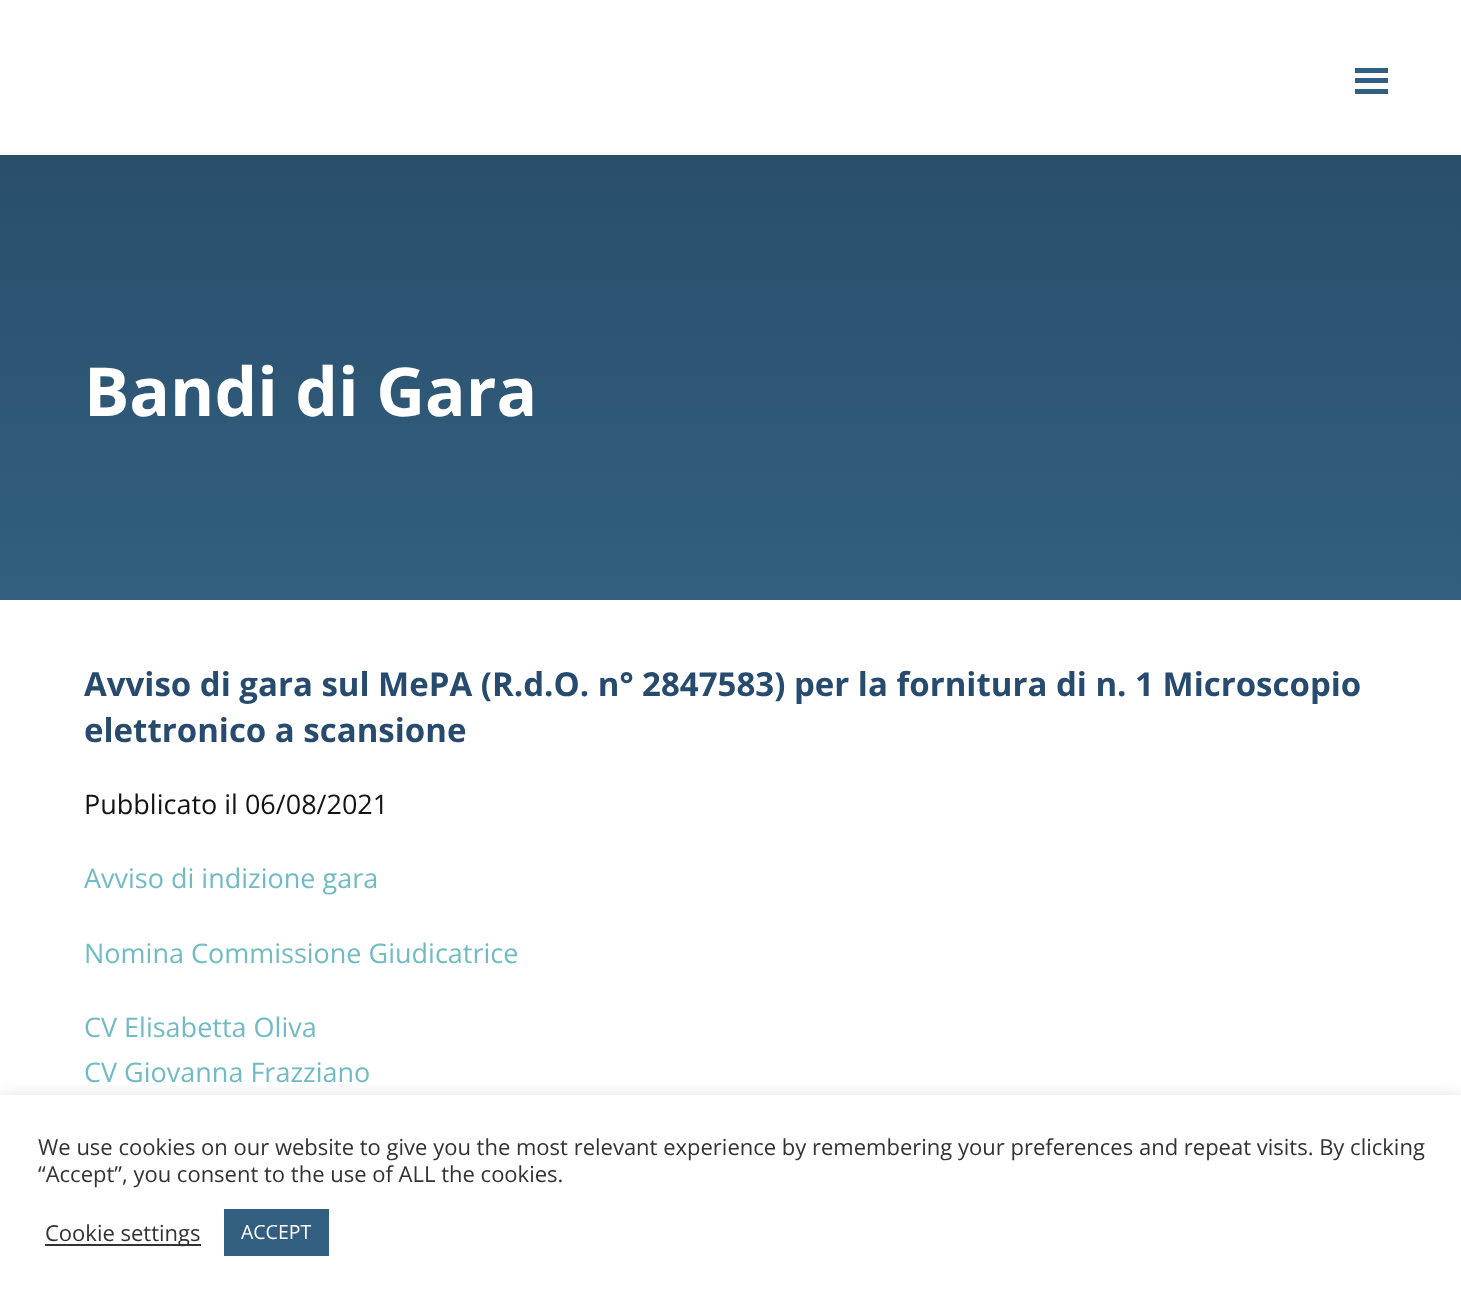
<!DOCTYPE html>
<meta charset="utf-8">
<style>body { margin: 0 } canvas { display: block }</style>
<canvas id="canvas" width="1461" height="1300"></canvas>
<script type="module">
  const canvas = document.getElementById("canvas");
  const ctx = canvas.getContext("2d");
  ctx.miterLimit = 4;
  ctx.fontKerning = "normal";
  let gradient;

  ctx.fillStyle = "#ffffff";
  ctx.fillRect(0, 0, 1461, 1300);
  ctx.fillStyle = "#325e82";
  ctx.fillRect(1355, 78, 33, 5);
  ctx.fillRect(1355, 68, 33, 5);
  ctx.fillRect(1355, 89, 33, 5);
  gradient = ctx.createLinearGradient(731, 600, 731, 0);
  gradient.addColorStop(0, "#325f80");
  gradient.addColorStop(1, "#264963");
  ctx.fillStyle = gradient;
  ctx.fillRect(0, 155, 1461, 445);
  ctx.font = "bold 67.5px Open Sans";
  ctx.fillStyle = "#ffffff";
  ctx.fillText("Bandi di Gara", 84, 416);
  ctx.font = "bold 33px Open Sans";
  ctx.fillStyle = "#274b6f";
  ctx.fillText("Avviso di gara sul MePA (R.d.O. n° 2847583) per la fornitura di n. 1 Microscopio", 84, 696);
  ctx.fillText("elettronico a scansione", 84, 742);
  ctx.font = "27px Open Sans";
  ctx.fillStyle = "#131313";
  ctx.fillText("Pubblicato il 06/08/2021", 84, 814);
  ctx.fillStyle = "#71bbc4";
  ctx.fillText("Avviso di indizione gara", 84, 888);
  ctx.fillText("Nomina Commissione Giudicatrice", 84, 963);
  ctx.fillText("CV Elisabetta Oliva", 84, 1037);
  ctx.fillText("CV Giovanna Frazziano", 84, 1082);
  ctx.fillStyle = "rgba(172, 171, 171, 0.3)";
  ctx.filter = "blur(7.5px)";
  ctx.beginPath();
  ctx.rect(0, 1094, 1461, 205);
  ctx.fill();
  ctx.filter = "none";
  ctx.fillStyle = "#ffffff";
  ctx.fillRect(0, 1095, 1461, 205);
  ctx.font = "22px Open Sans";
  ctx.fillStyle = "#333333";
  ctx.fillText("We use cookies on our website to give you the most relevant experience by remembering your preferences and repeat visits. By clicking", 38, 1155);
  ctx.fillText("“Accept”, you consent to the use of ALL the cookies.", 38, 1182);
  ctx.fillRect(45, 1244, 156, 2);
  ctx.fillText("Cookie settings", 45, 1241);
  ctx.fillStyle = "#325e80";
  ctx.fillRect(224, 1209, 105, 47);
  ctx.font = "19.5px Open Sans";
  ctx.fillStyle = "#ffffff";
  ctx.fillText("ACCEPT", 241, 1239);
</script>
